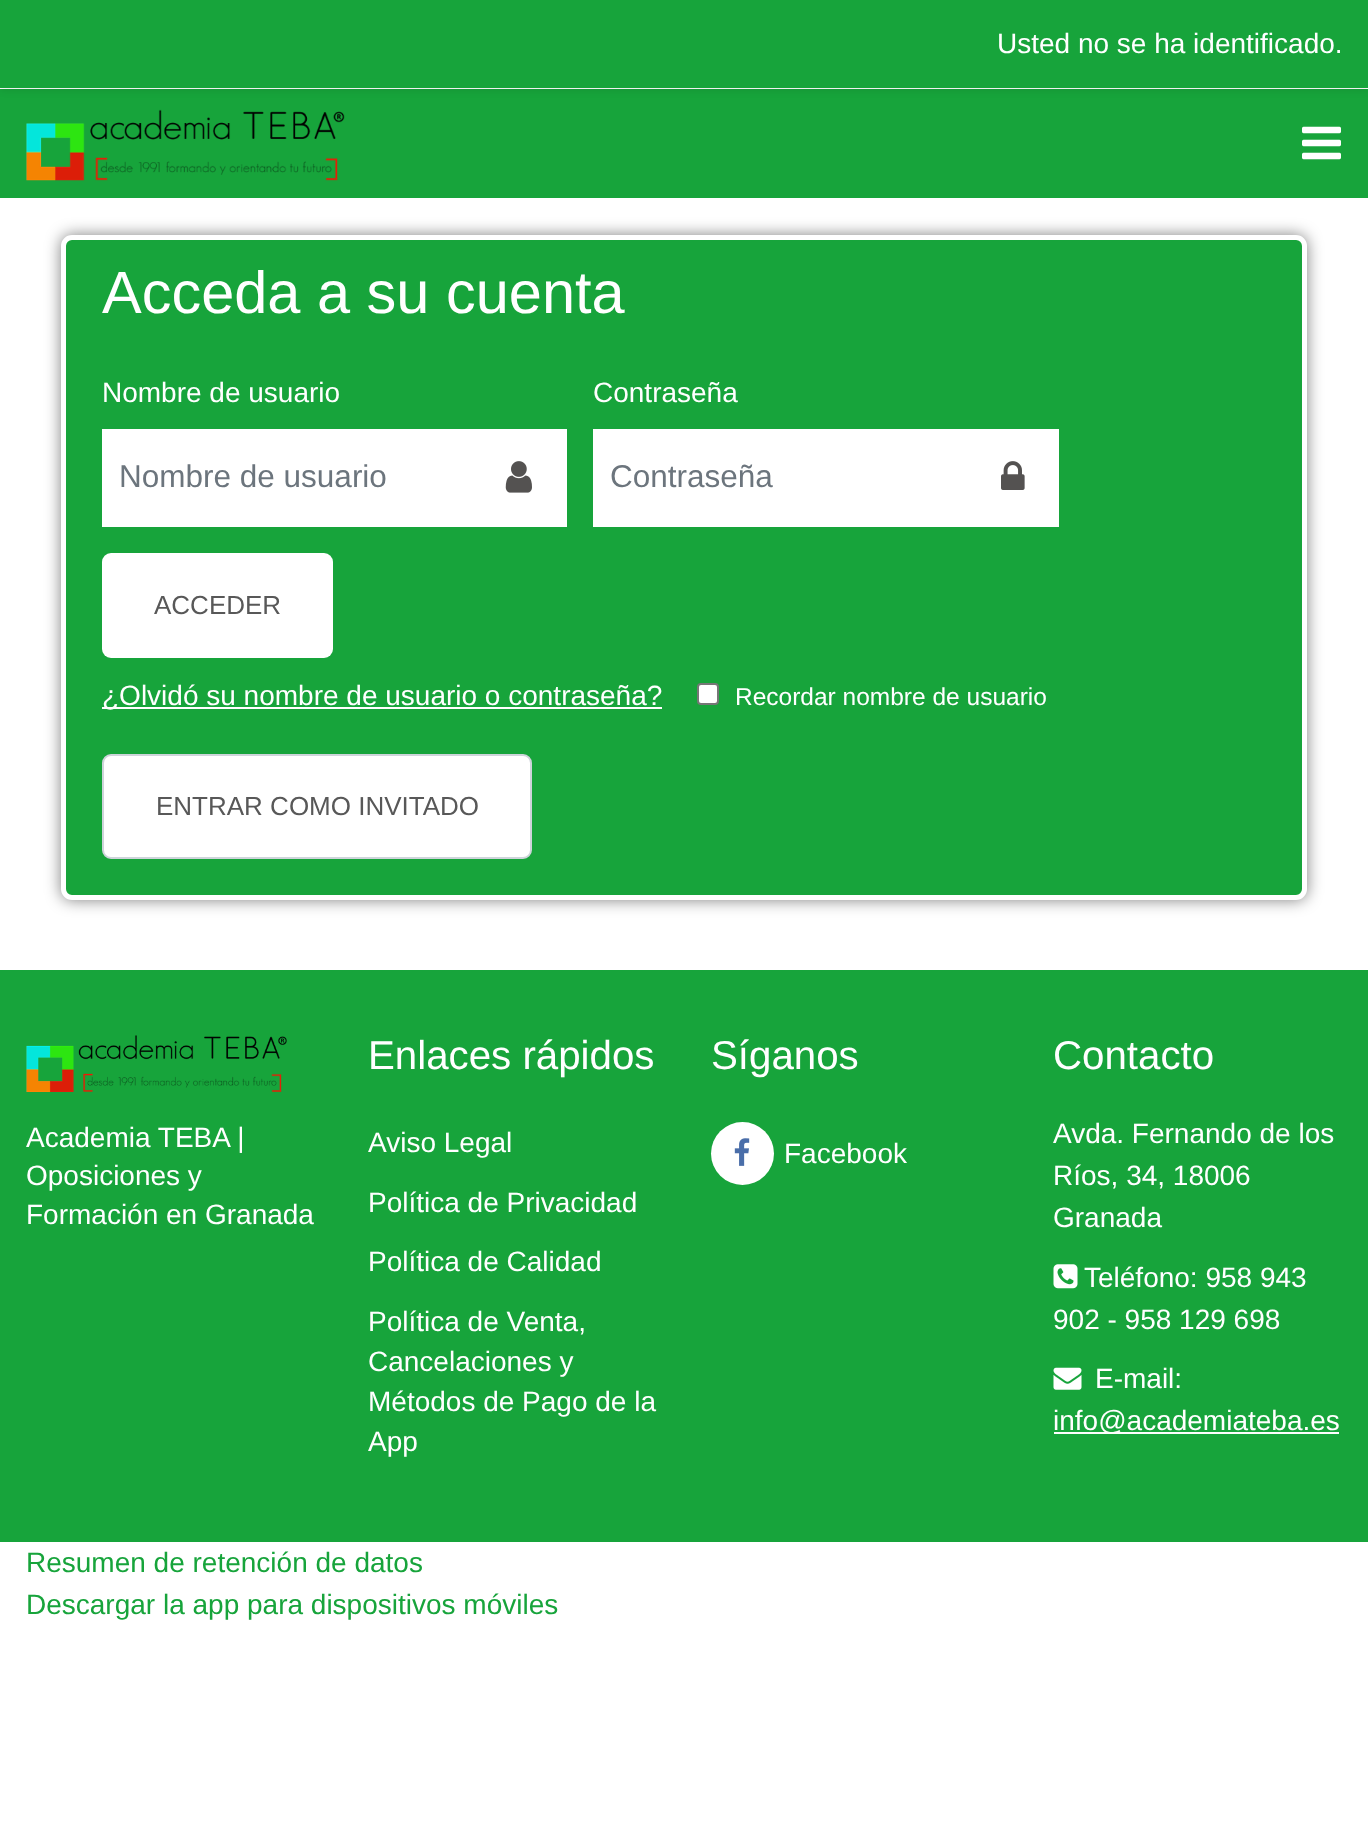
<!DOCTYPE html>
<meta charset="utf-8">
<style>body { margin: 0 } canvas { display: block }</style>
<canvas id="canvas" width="1368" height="1822"></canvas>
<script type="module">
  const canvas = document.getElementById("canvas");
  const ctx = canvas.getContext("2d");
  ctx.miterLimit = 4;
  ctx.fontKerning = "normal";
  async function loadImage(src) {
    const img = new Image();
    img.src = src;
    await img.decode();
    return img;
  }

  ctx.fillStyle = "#ffffff";
  ctx.fillRect(0, 0, 1368, 1822);
  ctx.fillStyle = "#17a43b";
  ctx.fillRect(0, 89, 1368, 109);
  ctx.fillStyle = "rgba(0, 0, 0, 0.08)";
  ctx.filter = "blur(3.5px)";
  ctx.beginPath();
  ctx.rect(0, 4, 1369, 87);
  ctx.fill();
  ctx.filter = "none";
  ctx.fillStyle = "#17a43b";
  ctx.fillRect(0, 0, 1368, 88);
  ctx.font = "28px Liberation Sans";
  ctx.fillStyle = "#ffffff";
  ctx.fillText("Usted no se ha identificado.", 997, 53);
  ctx.drawImage(await loadImage("img1.png"), 26, 109, 319, 72);
  ctx.drawImage(await loadImage("img2.png"), 1302, 126, 39, 34);
  ctx.fillStyle = "rgba(0, 0, 0, 0.5)";
  ctx.filter = "blur(8px)";
  ctx.beginPath();
  ctx.roundRect(61, 235, 1246, 665, 11);
  ctx.fill();
  ctx.filter = "none";
  ctx.fillStyle = "#17a43b";
  ctx.beginPath();
  ctx.roundRect(63.5, 237.5, 1241, 660, 8.5);
  ctx.fill();
  ctx.strokeStyle = "#ffffff";
  ctx.lineWidth = 5;
  ctx.stroke();
  ctx.font = "59.5px Liberation Sans";
  ctx.fillStyle = "#ffffff";
  ctx.fillText("Acceda a su cuenta", 102, 313);
  ctx.font = "28px Liberation Sans";
  ctx.fillText("Nombre de usuario", 102, 402);
  ctx.fillRect(102, 429, 465, 98);
  ctx.font = "31.5px Liberation Sans";
  ctx.fillStyle = "#6c757d";
  ctx.fillText("Nombre de usuario", 119, 487);
  ctx.drawImage(await loadImage("img3.png"), 505, 461, 27, 32);
  ctx.font = "28px Liberation Sans";
  ctx.fillStyle = "#ffffff";
  ctx.fillText("Contraseña", 593, 402);
  ctx.fillRect(593, 429, 466, 98);
  ctx.font = "31.5px Liberation Sans";
  ctx.fillStyle = "#6c757d";
  ctx.fillText("Contraseña", 610, 487);
  ctx.drawImage(await loadImage("img4.png"), 1001, 461, 24, 29);
  ctx.fillStyle = "#ffffff";
  ctx.beginPath();
  ctx.roundRect(102, 553, 231, 105, 9);
  ctx.fill();
  ctx.font = "26px Liberation Sans";
  ctx.fillStyle = "#585858";
  ctx.fillText("ACCEDER", 154, 614);
  ctx.fillStyle = "#ffffff";
  ctx.fillRect(102, 707, 560, 2);
  ctx.font = "28px Liberation Sans";
  ctx.fillText("¿Olvidó su nombre de usuario o contraseña?", 102, 705);
  ctx.beginPath();
  ctx.roundRect(698, 684, 20, 20, 3);
  ctx.fill();
  ctx.strokeStyle = "#767676";
  ctx.lineWidth = 2;
  ctx.stroke();
  ctx.font = "24.5px Liberation Sans";
  ctx.fillText("Recordar nombre de usuario", 735, 705);
  ctx.beginPath();
  ctx.roundRect(103, 755, 428, 103, 8);
  ctx.fill();
  ctx.strokeStyle = "#ced4da";
  ctx.stroke();
  ctx.font = "26px Liberation Sans";
  ctx.fillStyle = "#585858";
  ctx.fillText("ENTRAR COMO INVITADO", 156, 815);
  ctx.fillStyle = "#17a43b";
  ctx.fillRect(0, 970, 1368, 572);
  ctx.drawImage(await loadImage("img5.png"), 26, 1035, 261, 57);
  ctx.font = "28px Liberation Sans";
  ctx.fillStyle = "#ffffff";
  ctx.fillText("Academia TEBA |", 26, 1147);
  ctx.fillText("Oposiciones y", 26, 1185);
  ctx.fillText("Formación en Granada", 26, 1224);
  ctx.font = "40.25px Liberation Sans";
  ctx.fillText("Enlaces rápidos", 368, 1069);
  ctx.font = "28px Liberation Sans";
  ctx.fillText("Aviso Legal", 368, 1152);
  ctx.fillText("Política de Privacidad", 368, 1212);
  ctx.fillText("Política de Calidad", 368, 1271);
  ctx.fillText("Política de Venta,", 368, 1331);
  ctx.fillText("Cancelaciones y", 368, 1371);
  ctx.fillText("Métodos de Pago de la", 368, 1411);
  ctx.fillText("App", 368, 1451);
  ctx.font = "40.25px Liberation Sans";
  ctx.fillText("Síganos", 711, 1069);
  ctx.beginPath();
  ctx.arc(742.5, 1153.5, 31.5, 0, Math.PI * 2);
  ctx.fill();
  ctx.drawImage(await loadImage("img6.png"), 734, 1138, 16, 28);
  ctx.font = "28px Liberation Sans";
  ctx.fillText("Facebook", 784, 1163);
  ctx.font = "40.25px Liberation Sans";
  ctx.fillText("Contacto", 1053, 1069);
  ctx.font = "28px Liberation Sans";
  ctx.fillText("Avda. Fernando de los", 1053, 1143);
  ctx.fillText("Ríos, 34, 18006", 1053, 1185);
  ctx.fillText("Granada", 1053, 1227);
  ctx.drawImage(await loadImage("img7.png"), 1053, 1264, 25, 25);
  ctx.fillText("Teléfono: 958 943", 1084, 1287);
  ctx.fillText("902 - 958 129 698", 1053, 1329);
  ctx.drawImage(await loadImage("img8.png"), 1053, 1367, 29, 23);
  ctx.fillText("E-mail:", 1095, 1388);
  ctx.fillRect(1054, 1432, 285, 2);
  ctx.fillText("info@academiateba.es", 1053, 1430);
  ctx.fillStyle = "#17a43b";
  ctx.fillText("Resumen de retención de datos", 26, 1572);
  ctx.fillText("Descargar la app para dispositivos móviles", 26, 1614);
</script>
